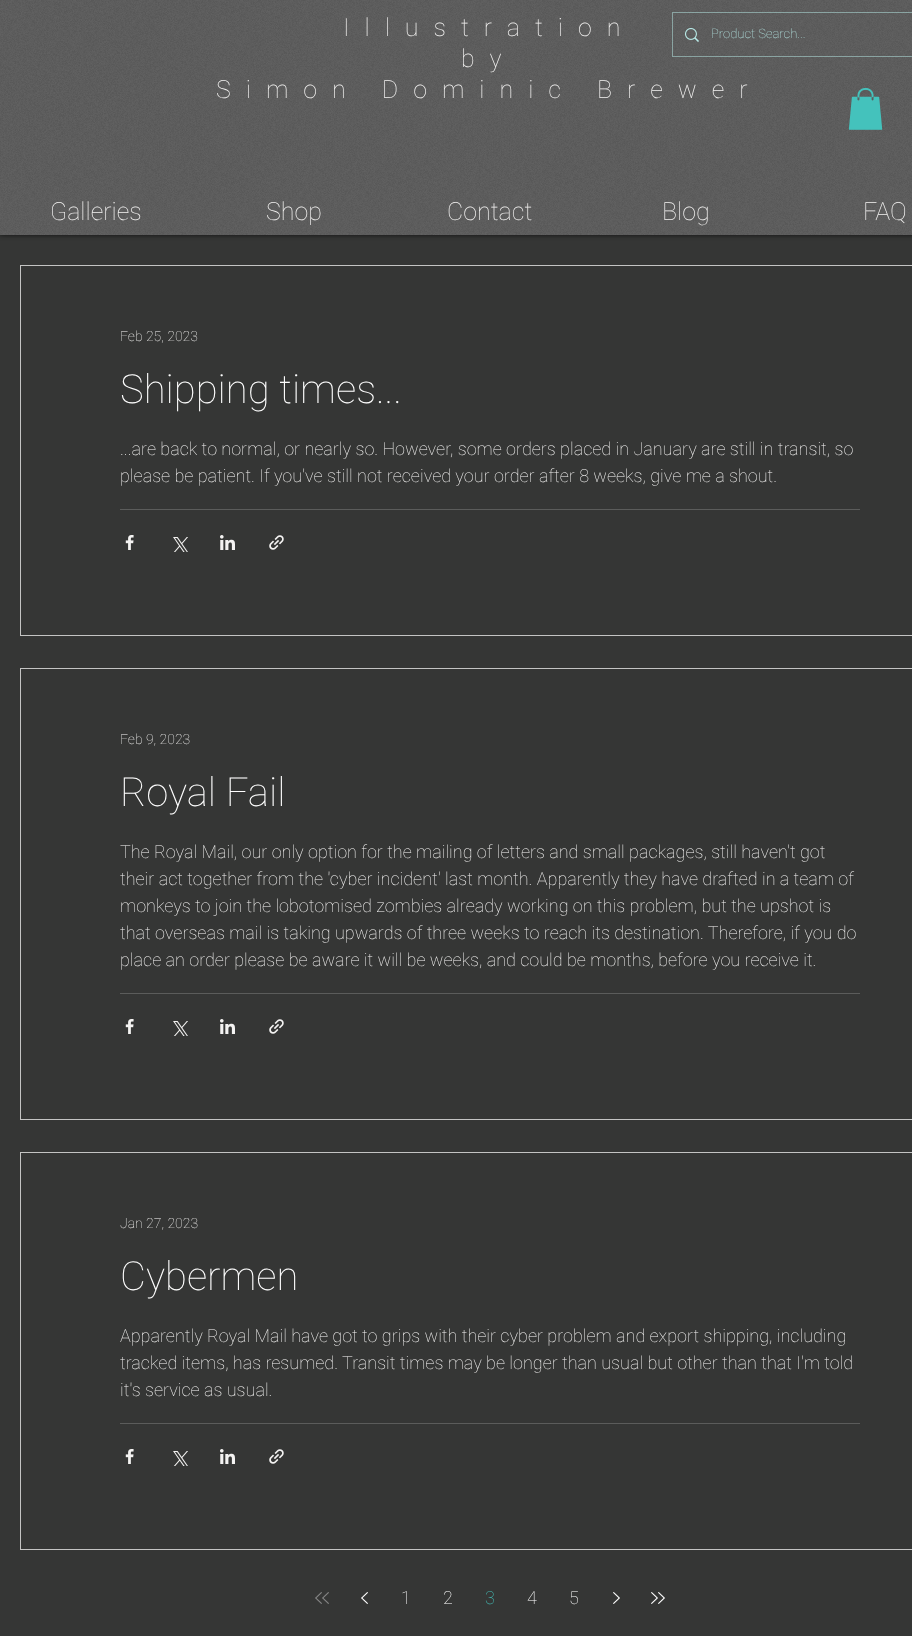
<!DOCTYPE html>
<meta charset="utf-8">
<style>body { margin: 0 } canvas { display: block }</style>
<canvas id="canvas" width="912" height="1636"></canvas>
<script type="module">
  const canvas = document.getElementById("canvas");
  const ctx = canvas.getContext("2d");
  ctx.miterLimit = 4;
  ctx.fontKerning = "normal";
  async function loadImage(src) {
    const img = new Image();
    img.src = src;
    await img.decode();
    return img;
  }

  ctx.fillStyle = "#353635";
  ctx.fillRect(0, 0, 912, 1636);
  ctx.fillStyle = "rgba(0, 0, 0, 0.7)";
  ctx.filter = "blur(2.5px)";
  ctx.beginPath();
  ctx.rect(0, 0, 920, 235);
  ctx.fill();
  ctx.filter = "none";
  ctx.fillStyle = "#5e5e5e";
  ctx.fillRect(0, 0, 912, 235);
  ctx.drawImage(await loadImage("img1.png"), 0, 0, 912, 235);
  ctx.letterSpacing = "15px";
  ctx.font = "100 25px Roboto";
  ctx.fillStyle = "#f4f3f2";
  ctx.fillText("Illustration", 343, 36);
  ctx.fillText("by", 461, 67);
  ctx.fillText("Simon Dominic Brewer", 216, 98);
  ctx.strokeStyle = "rgba(184, 235, 232, 0.5)";
  ctx.strokeRect(672.5, 12.5, 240, 44);
  ctx.drawImage(await loadImage("img2.png"), 685, 28, 14, 14);
  ctx.letterSpacing = "0px";
  ctx.font = "100 13px Roboto";
  ctx.fillStyle = "#b8ebe8";
  ctx.fillText("Product Search...", 711, 38);
  ctx.drawImage(await loadImage("img3.png"), 848, 88, 35, 42);
  ctx.font = "100 25px Roboto";
  ctx.fillStyle = "#f4f3f2";
  ctx.fillText("Galleries", 50, 220);
  ctx.fillText("Shop", 266, 220);
  ctx.fillText("Contact", 447, 220);
  ctx.fillText("Blog", 662, 220);
  ctx.fillText("FAQ", 863, 220);
  ctx.strokeStyle = "#c4c4c3";
  ctx.strokeRect(20.5, 265.5, 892, 370);
  ctx.font = "100 14px Roboto";
  ctx.fillText("Feb 25, 2023", 120, 341);
  ctx.font = "100 40px Roboto";
  ctx.fillStyle = "#ffffff";
  ctx.fillText("Shipping times...", 120, 403);
  ctx.font = "100 18px Roboto";
  ctx.fillStyle = "#f4f3f2";
  ctx.fillText("...are back to normal, or nearly so. However, some orders placed in January are still in transit, so", 120, 455);
  ctx.fillText("please be patient. If you've still not received your order after 8 weeks, give me a shout.", 120, 482);
  ctx.fillStyle = "#5b5c5b";
  ctx.fillRect(120, 509, 740, 1);
  ctx.drawImage(await loadImage("img4.png"), 125, 535, 9, 15);
  ctx.drawImage(await loadImage("img5.png"), 173, 537, 15, 15);
  ctx.drawImage(await loadImage("img6.png"), 220, 535, 15, 15);
  ctx.drawImage(await loadImage("img7.png"), 269, 535, 15, 15);
  ctx.strokeRect(20.5, 668.5, 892, 451);
  ctx.font = "100 14px Roboto";
  ctx.fillStyle = "#f4f3f2";
  ctx.fillText("Feb 9, 2023", 120, 744);
  ctx.font = "100 40px Roboto";
  ctx.fillStyle = "#ffffff";
  ctx.fillText("Royal Fail", 120, 806);
  ctx.font = "100 18px Roboto";
  ctx.fillStyle = "#f4f3f2";
  ctx.fillText("The Royal Mail, our only option for the mailing of letters and small packages, still haven't got", 120, 858);
  ctx.fillText("their act together from the 'cyber incident' last month. Apparently they have drafted in a team of", 120, 885);
  ctx.fillText("monkeys to join the lobotomised zombies already working on this problem, but the upshot is", 120, 912);
  ctx.fillText("that overseas mail is taking upwards of three weeks to reach its destination. Therefore, if you do", 120, 939);
  ctx.fillText("place an order please be aware it will be weeks, and could be months, before you receive it.", 120, 966);
  ctx.fillStyle = "#5b5c5b";
  ctx.fillRect(120, 993, 740, 1);
  ctx.drawImage(await loadImage("img4.png"), 125, 1019, 9, 15);
  ctx.drawImage(await loadImage("img5.png"), 173, 1021, 15, 15);
  ctx.drawImage(await loadImage("img6.png"), 220, 1019, 15, 15);
  ctx.drawImage(await loadImage("img7.png"), 269, 1019, 15, 15);
  ctx.strokeRect(20.5, 1152.5, 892, 397);
  ctx.font = "100 14px Roboto";
  ctx.fillStyle = "#f4f3f2";
  ctx.fillText("Jan 27, 2023", 120, 1228);
  ctx.font = "100 40px Roboto";
  ctx.fillStyle = "#ffffff";
  ctx.fillText("Cybermen", 120, 1290);
  ctx.font = "100 18px Roboto";
  ctx.fillStyle = "#f4f3f2";
  ctx.fillText("Apparently Royal Mail have got to grips with their cyber problem and export shipping, including", 120, 1342);
  ctx.fillText("tracked items, has resumed. Transit times may be longer than usual but other than that I'm told", 120, 1369);
  ctx.fillText("it's service as usual.", 120, 1396);
  ctx.fillStyle = "#5b5c5b";
  ctx.fillRect(120, 1423, 740, 1);
  ctx.drawImage(await loadImage("img4.png"), 125, 1449, 9, 15);
  ctx.drawImage(await loadImage("img5.png"), 173, 1451, 15, 15);
  ctx.drawImage(await loadImage("img6.png"), 220, 1449, 15, 15);
  ctx.drawImage(await loadImage("img7.png"), 269, 1449, 15, 15);
  ctx.drawImage(await loadImage("img8.png"), 315, 1592, 7, 12);
  ctx.drawImage(await loadImage("img8.png"), 322, 1592, 7, 12);
  ctx.drawImage(await loadImage("img9.png"), 361, 1592, 7, 12);
  ctx.fillStyle = "#ffffff";
  ctx.fillText("1", 401, 1604);
  ctx.fillText("2", 443, 1604);
  ctx.fillStyle = "#44c2bc";
  ctx.fillText("3", 485, 1604);
  ctx.fillStyle = "#ffffff";
  ctx.fillText("4", 527, 1604);
  ctx.fillText("5", 569, 1604);
  ctx.drawImage(await loadImage("img10.png"), 613, 1592, 7, 12);
  ctx.drawImage(await loadImage("img10.png"), 651, 1592, 7, 12);
  ctx.drawImage(await loadImage("img10.png"), 658, 1592, 7, 12);
</script>
